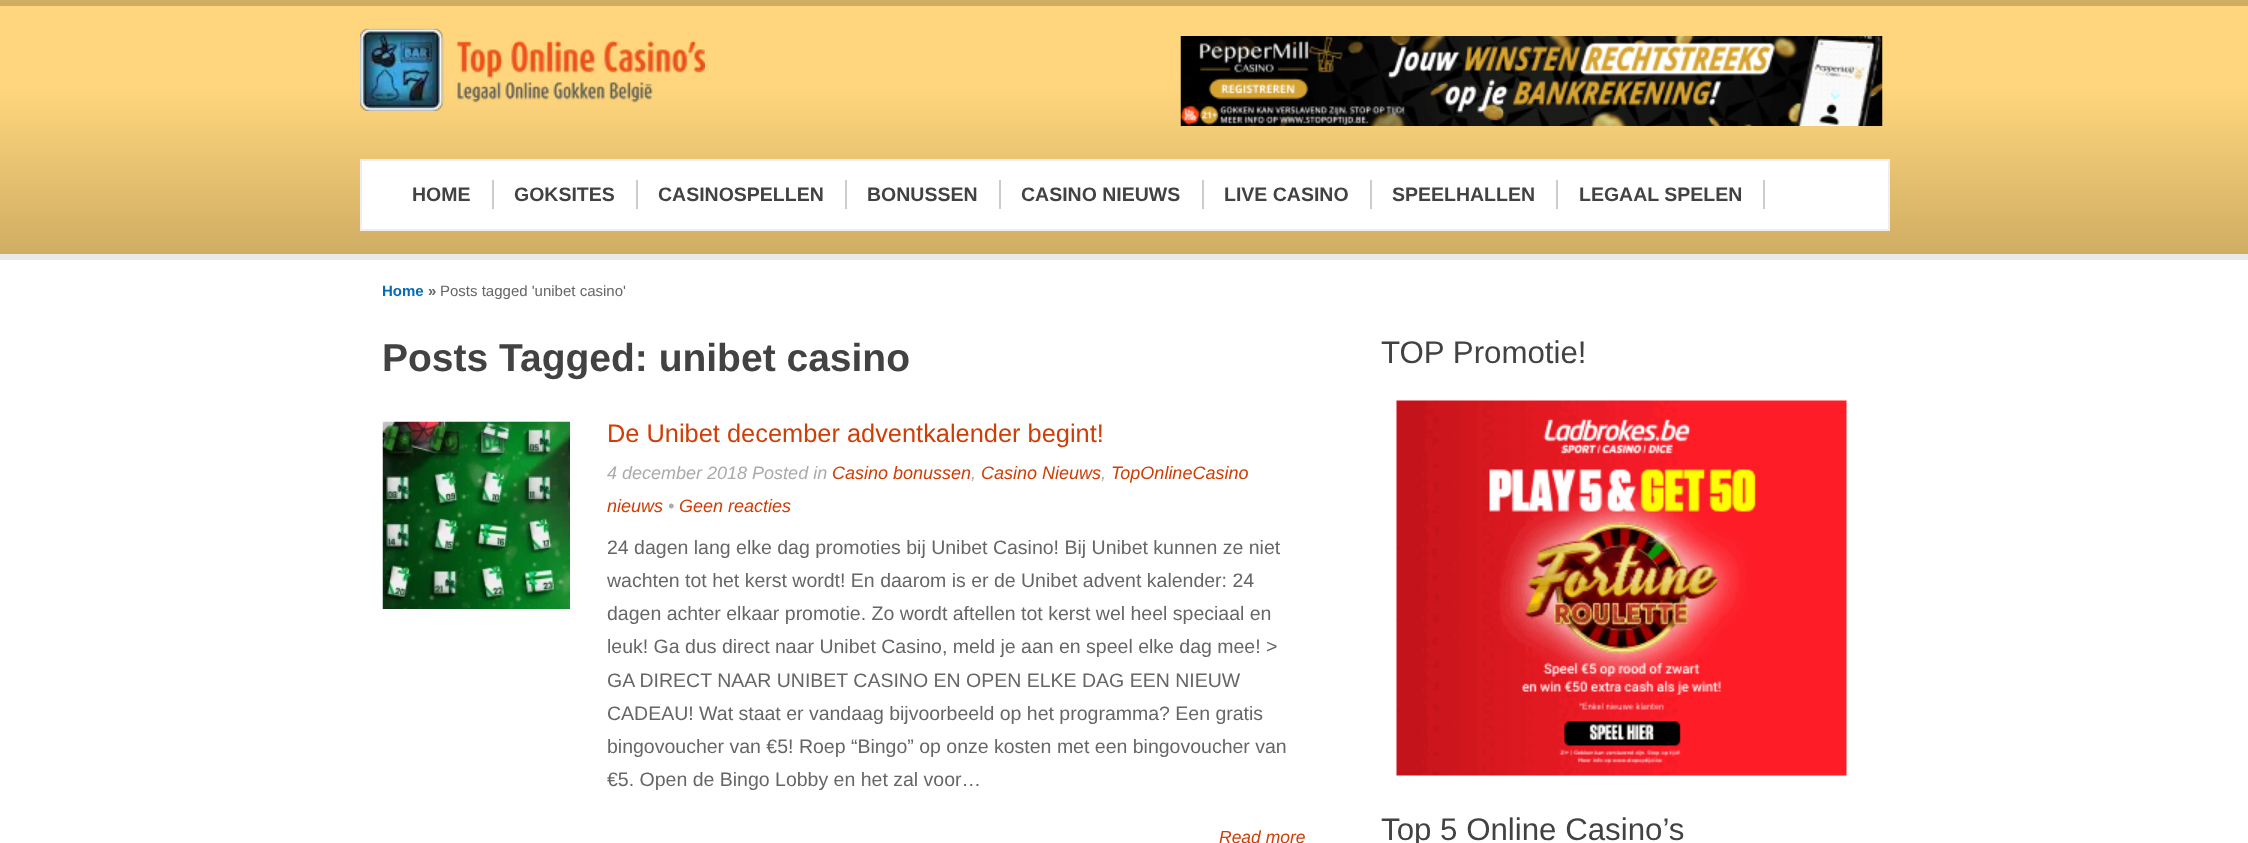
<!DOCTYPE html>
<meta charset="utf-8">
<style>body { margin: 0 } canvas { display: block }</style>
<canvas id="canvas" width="2248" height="843"></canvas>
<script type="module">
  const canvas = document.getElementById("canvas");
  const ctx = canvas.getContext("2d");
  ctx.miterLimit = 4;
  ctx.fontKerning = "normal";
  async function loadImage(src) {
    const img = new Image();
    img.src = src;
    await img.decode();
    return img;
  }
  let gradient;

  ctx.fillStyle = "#ffffff";
  ctx.fillRect(0, 0, 2248, 843);
  gradient = ctx.createLinearGradient(1124, 6, 1124, 254);
  gradient.addColorStop(0.33, "#ffd67d");
  gradient.addColorStop(1, "#cfad63");
  ctx.fillStyle = gradient;
  ctx.fillRect(0, 6, 2248, 248);
  ctx.fillStyle = "#cfad63";
  ctx.fillRect(0, 0, 2248, 6);
  ctx.fillStyle = "#e9e9e9";
  ctx.fillRect(0, 254, 2248, 6);
  ctx.drawImage(await loadImage("img1.png"), 360, 28, 345, 83);
  ctx.drawImage(await loadImage("img2.png"), 1180, 36, 703, 90);
  ctx.fillStyle = "#ffffff";
  ctx.beginPath();
  ctx.rect(361, 160, 1528, 70);
  ctx.fill();
  ctx.strokeStyle = "#eeeeee";
  ctx.lineWidth = 2;
  ctx.stroke();
  ctx.font = "bold 19.5px Liberation Sans";
  ctx.fillStyle = "#424242";
  ctx.fillText("HOME", 412, 201);
  ctx.fillStyle = "#cccccc";
  ctx.fillRect(492, 180, 2, 29);
  ctx.fillStyle = "#424242";
  ctx.fillText("GOKSITES", 514, 201);
  ctx.fillStyle = "#cccccc";
  ctx.fillRect(636, 180, 2, 29);
  ctx.fillStyle = "#424242";
  ctx.fillText("CASINOSPELLEN", 658, 201);
  ctx.fillStyle = "#cccccc";
  ctx.fillRect(845, 180, 2, 29);
  ctx.fillStyle = "#424242";
  ctx.fillText("BONUSSEN", 867, 201);
  ctx.fillStyle = "#cccccc";
  ctx.fillRect(999, 180, 2, 29);
  ctx.fillStyle = "#424242";
  ctx.fillText("CASINO NIEUWS", 1021, 201);
  ctx.fillStyle = "#cccccc";
  ctx.fillRect(1202, 180, 2, 29);
  ctx.fillStyle = "#424242";
  ctx.fillText("LIVE CASINO", 1224, 201);
  ctx.fillStyle = "#cccccc";
  ctx.fillRect(1370, 180, 2, 29);
  ctx.fillStyle = "#424242";
  ctx.fillText("SPEELHALLEN", 1392, 201);
  ctx.fillStyle = "#cccccc";
  ctx.fillRect(1556, 180, 2, 29);
  ctx.fillStyle = "#424242";
  ctx.fillText("LEGAAL SPELEN", 1579, 201);
  ctx.fillStyle = "#cccccc";
  ctx.fillRect(1763, 180, 2, 29);
  ctx.font = "bold 15px Liberation Sans";
  ctx.fillStyle = "#046cb6";
  ctx.fillText("Home", 382, 296);
  ctx.fillStyle = "#666666";
  ctx.fillText("»", 428, 296);
  ctx.font = "15px Liberation Sans";
  ctx.fillText("Posts tagged 'unibet casino'", 440, 296);
  ctx.font = "bold 39px Liberation Sans";
  ctx.fillStyle = "#424242";
  ctx.fillText("Posts Tagged: unibet casino", 382, 371);
  ctx.drawImage(await loadImage("img3.png"), 382, 421, 188, 188);
  ctx.font = "25.4px Liberation Sans";
  ctx.fillStyle = "#ce3e06";
  ctx.fillText("De Unibet december adventkalender begint!", 607, 442);
  ctx.font = "italic 18px Liberation Sans";
  ctx.fillStyle = "#ababab";
  ctx.fillText("4 december 2018 Posted in", 607, 479);
  ctx.fillStyle = "#ce3e06";
  ctx.fillText("Casino bonussen", 832, 479);
  ctx.fillStyle = "#ababab";
  ctx.fillText(",", 971, 479);
  ctx.fillStyle = "#ce3e06";
  ctx.fillText("Casino Nieuws", 981, 479);
  ctx.fillStyle = "#ababab";
  ctx.fillText(",", 1101, 479);
  ctx.fillStyle = "#ce3e06";
  ctx.fillText("TopOnlineCasino", 1111, 479);
  ctx.fillText("nieuws", 607, 512);
  ctx.fillStyle = "#ababab";
  ctx.fillText("•", 668, 512);
  ctx.fillStyle = "#ce3e06";
  ctx.fillText("Geen reacties", 679, 512);
  ctx.font = "19.5px Liberation Sans";
  ctx.fillStyle = "#666666";
  ctx.fillText("24 dagen lang elke dag promoties bij Unibet Casino! Bij Unibet kunnen ze niet", 607, 554);
  ctx.fillText("wachten tot het kerst wordt! En daarom is er de Unibet advent kalender: 24", 607, 587);
  ctx.fillText("dagen achter elkaar promotie. Zo wordt aftellen tot kerst wel heel speciaal en", 607, 620);
  ctx.fillText("leuk! Ga dus direct naar Unibet Casino, meld je aan en speel elke dag mee! >", 607, 653);
  ctx.fillText("GA DIRECT NAAR UNIBET CASINO EN OPEN ELKE DAG EEN NIEUW", 607, 687);
  ctx.fillText("CADEAU! Wat staat er vandaag bijvoorbeeld op het programma? Een gratis", 607, 720);
  ctx.fillText("bingovoucher van €5! Roep “Bingo” op onze kosten met een bingovoucher van", 607, 753);
  ctx.fillText("€5. Open de Bingo Lobby en het zal voor…", 607, 786);
  ctx.font = "italic 17.5px Liberation Sans";
  ctx.fillStyle = "#ce3e06";
  ctx.fillText("Read more", 1219, 843);
  ctx.font = "31.25px Liberation Sans";
  ctx.fillStyle = "#424242";
  ctx.fillText("TOP Promotie!", 1381, 363);
  ctx.drawImage(await loadImage("img4.png"), 1396, 400, 451, 376);
  ctx.fillText("Top 5 Online Casino’s", 1381, 840);
</script>
